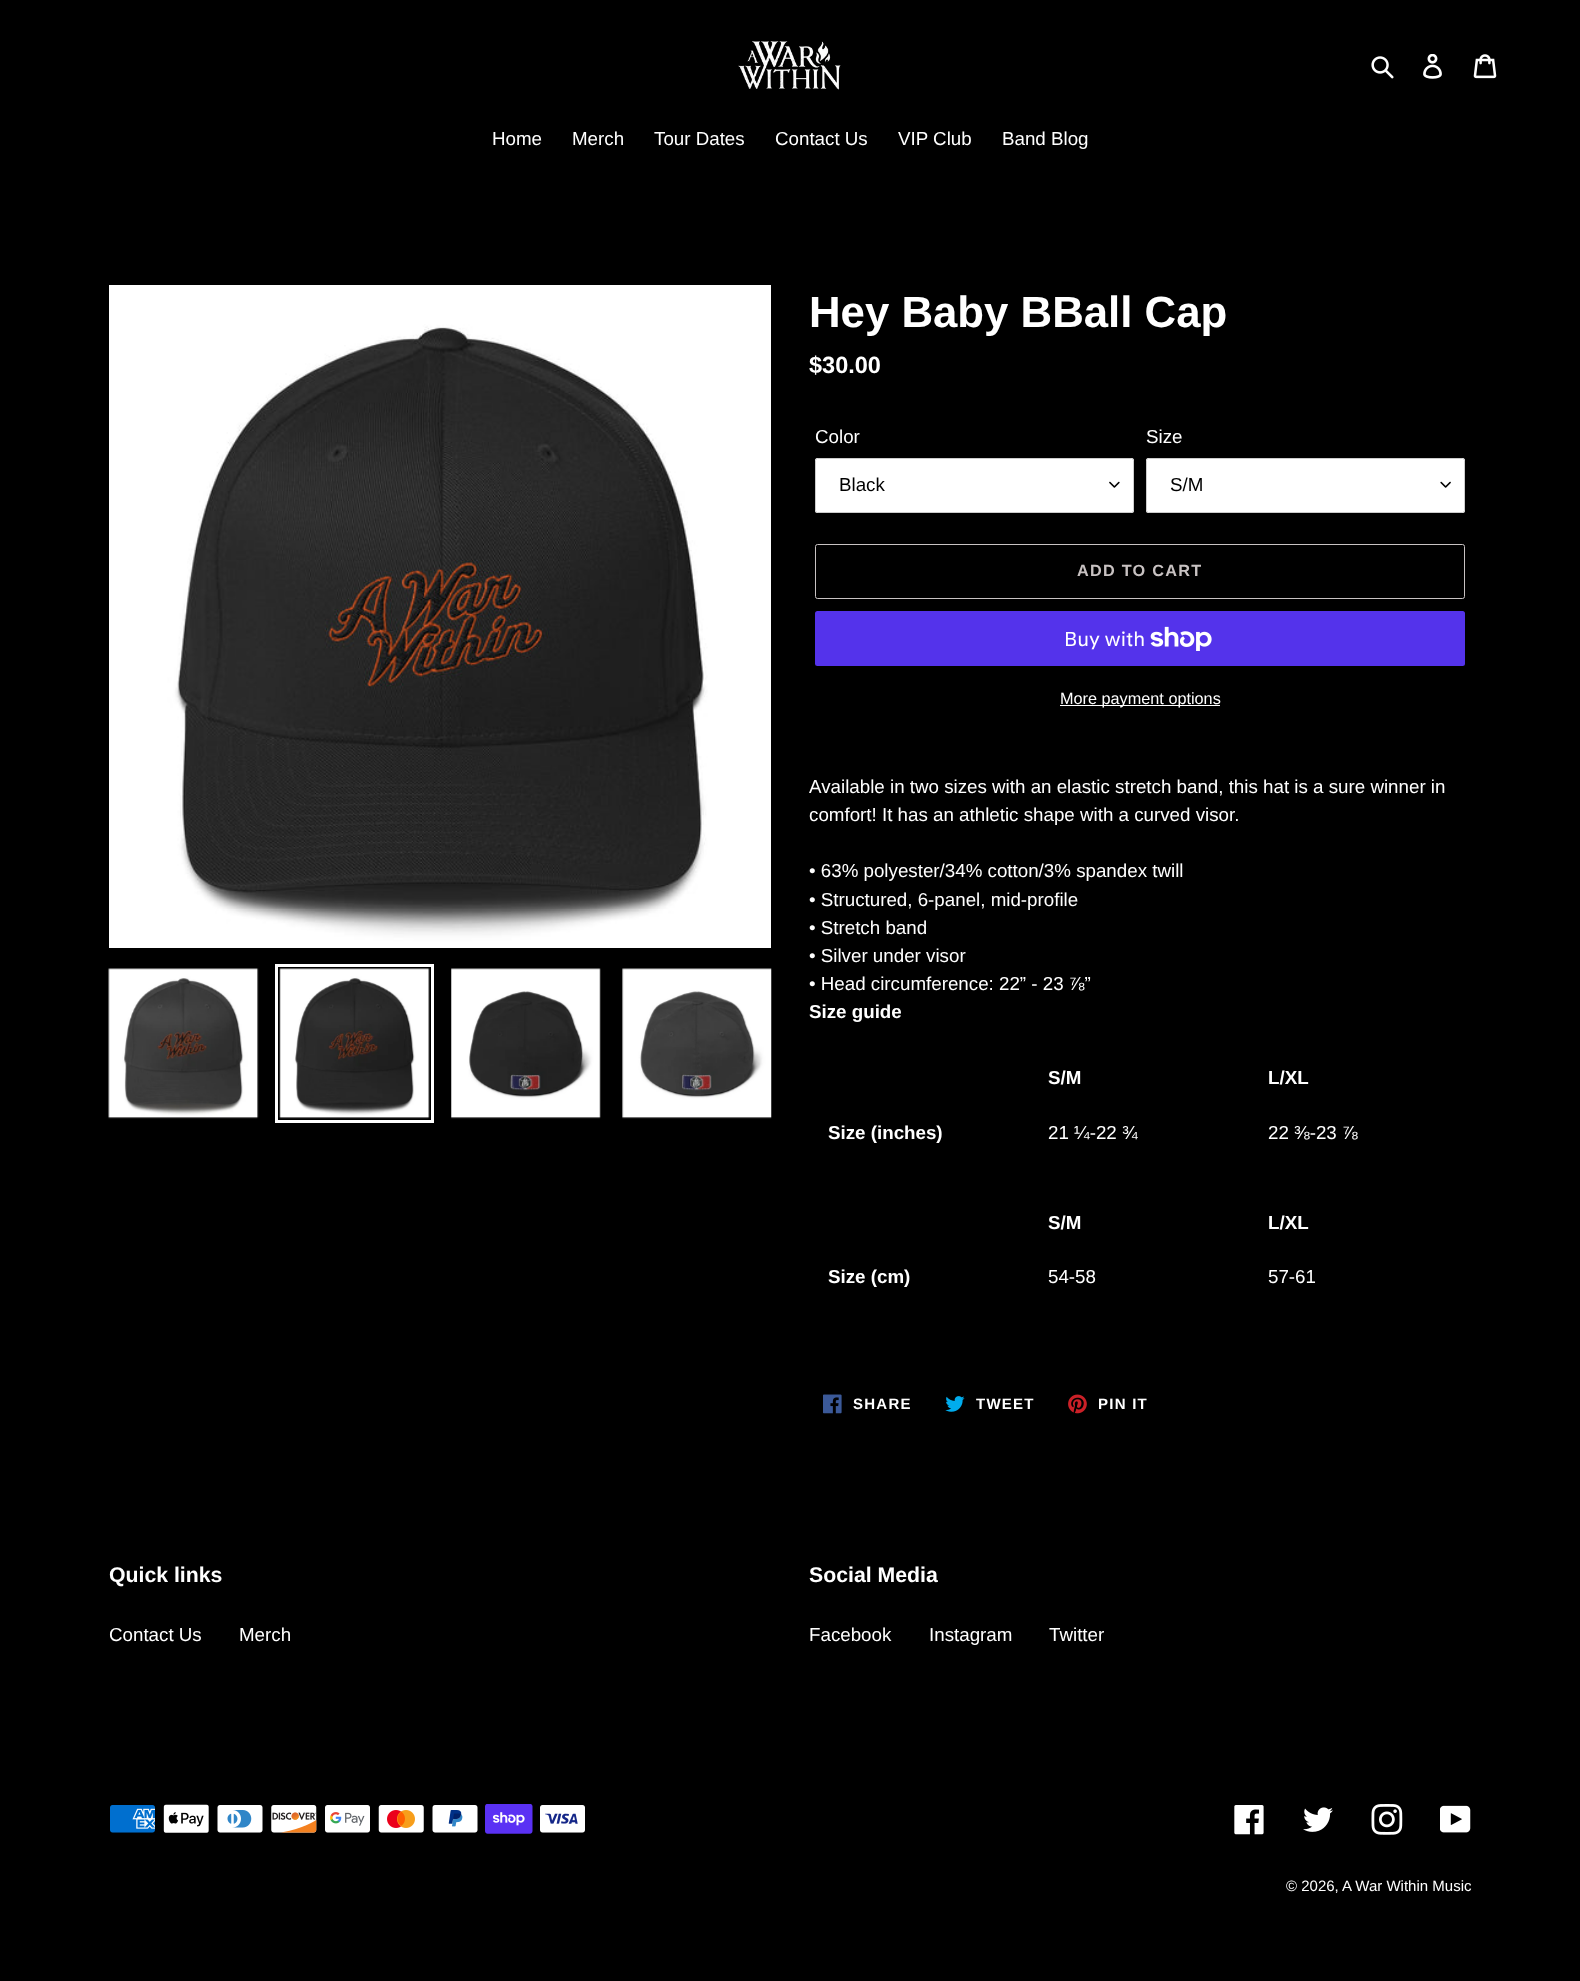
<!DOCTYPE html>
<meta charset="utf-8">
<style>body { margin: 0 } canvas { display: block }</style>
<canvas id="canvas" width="1580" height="1981"></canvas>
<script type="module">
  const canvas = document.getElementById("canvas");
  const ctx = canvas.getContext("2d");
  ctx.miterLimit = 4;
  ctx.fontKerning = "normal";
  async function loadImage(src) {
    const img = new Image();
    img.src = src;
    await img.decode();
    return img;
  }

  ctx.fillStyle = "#000000";
  ctx.fillRect(0, 0, 1580, 1981);
  ctx.drawImage(await loadImage("img1.png"), 738, 41, 103, 49);
  ctx.drawImage(await loadImage("img2.png"), 1371, 56, 23, 23);
  ctx.drawImage(await loadImage("img3.png"), 1423, 54, 19, 25);
  ctx.drawImage(await loadImage("img4.png"), 1473, 54, 24, 25);
  ctx.font = "18.75px Liberation Sans";
  ctx.fillStyle = "#ffffff";
  ctx.fillText("Home", 492, 145);
  ctx.fillText("Merch", 572, 145);
  ctx.fillText("Tour Dates", 654, 145);
  ctx.fillText("Contact Us", 775, 145);
  ctx.fillText("VIP Club", 898, 145);
  ctx.fillText("Band Blog", 1002, 145);
  ctx.drawImage(await loadImage("img5.png"), 109, 285, 662, 663);
  ctx.drawImage(await loadImage("img6.png"), 108, 968, 151, 151);
  ctx.strokeStyle = "#ffffff";
  ctx.lineWidth = 3;
  ctx.strokeRect(276.5, 965.5, 156, 156);
  ctx.drawImage(await loadImage("img7.png"), 279, 968, 151, 151);
  ctx.drawImage(await loadImage("img8.png"), 451, 968, 150, 151);
  ctx.drawImage(await loadImage("img9.png"), 622, 968, 150, 151);
  ctx.font = "bold 43.75px Liberation Sans";
  ctx.fillText("Hey Baby BBall Cap", 809, 327);
  ctx.font = "bold 23.5px Liberation Sans";
  ctx.fillText("$30.00", 809, 373);
  ctx.font = "18.75px Liberation Sans";
  ctx.fillText("Color", 815, 443);
  ctx.beginPath();
  ctx.roundRect(815, 458, 319, 55, 2.5);
  ctx.fill();
  ctx.drawImage(await loadImage("img10.png"), 1109, 481, 11, 7);
  ctx.beginPath();
  ctx.roundRect(815.5, 458.5, 318, 54, 2);
  ctx.strokeStyle = "#cccccc";
  ctx.lineWidth = 1;
  ctx.stroke();
  ctx.fillStyle = "#000000";
  ctx.fillText("Black", 839, 491);
  ctx.fillStyle = "#ffffff";
  ctx.fillText("Size", 1146, 443);
  ctx.beginPath();
  ctx.roundRect(1146, 458, 319, 55, 2.5);
  ctx.fill();
  ctx.drawImage(await loadImage("img11.png"), 1440, 481, 11, 7);
  ctx.beginPath();
  ctx.roundRect(1146.5, 458.5, 318, 54, 2);
  ctx.stroke();
  ctx.fillStyle = "#000000";
  ctx.fillText("S/M", 1170, 491);
  ctx.beginPath();
  ctx.roundRect(815.5, 544.5, 649, 54, 2);
  ctx.strokeStyle = "#c8c2c2";
  ctx.stroke();
  ctx.letterSpacing = "1.25px";
  ctx.font = "bold 16.25px Liberation Sans";
  ctx.fillStyle = "#c8c2c2";
  ctx.fillText("ADD TO CART", 1077, 576);
  ctx.fillStyle = "#5433eb";
  ctx.beginPath();
  ctx.roundRect(815, 611, 650, 55, 2.5);
  ctx.fill();
  ctx.letterSpacing = "0px";
  ctx.font = "20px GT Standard";
  ctx.fillStyle = "#ffffff";
  ctx.fillText("Buy with", 1064, 646);
  ctx.drawImage(await loadImage("img12.png"), 1150, 626, 62, 25);
  ctx.fillRect(1060, 705, 160, 1);
  ctx.font = "16.25px Liberation Sans";
  ctx.fillText("More payment options", 1060, 704);
  ctx.font = "18.75px Liberation Sans";
  ctx.fillText("Available in two sizes with an elastic stretch band, this hat is a sure winner in", 809, 793);
  ctx.fillText("comfort! It has an athletic shape with a curved visor.", 809, 821);
  ctx.fillText("• 63% polyester/34% cotton/3% spandex twill", 809, 877);
  ctx.fillText("• Structured, 6-panel, mid-profile", 809, 906);
  ctx.fillText("• Stretch band", 809, 934);
  ctx.fillText("• Silver under visor", 809, 962);
  ctx.fillText("• Head circumference: 22” - 23 ⅞”", 809, 990);
  ctx.font = "bold 18.75px Liberation Sans";
  ctx.fillText("Size guide", 809, 1018);
  ctx.fillText("S/M", 1048, 1084);
  ctx.fillText("L/XL", 1268, 1084);
  ctx.fillText("Size (inches)", 828, 1139);
  ctx.font = "18.75px Liberation Sans";
  ctx.fillText("21 ¼-22 ¾", 1048, 1139);
  ctx.fillText("22 ⅜-23 ⅞", 1268, 1139);
  ctx.font = "bold 18.75px Liberation Sans";
  ctx.fillText("S/M", 1048, 1229);
  ctx.fillText("L/XL", 1268, 1229);
  ctx.fillText("Size (cm)", 828, 1283);
  ctx.font = "18.75px Liberation Sans";
  ctx.fillText("54-58", 1048, 1283);
  ctx.fillText("57-61", 1268, 1283);
  ctx.drawImage(await loadImage("img13.png"), 823, 1394, 19, 20);
  ctx.letterSpacing = "1.25px";
  ctx.font = "bold 15px Liberation Sans";
  ctx.fillText("SHARE", 853, 1409);
  ctx.drawImage(await loadImage("img14.png"), 945, 1396, 20, 16);
  ctx.fillText("TWEET", 976, 1409);
  ctx.drawImage(await loadImage("img15.png"), 1068, 1394, 19, 20);
  ctx.fillText("PIN IT", 1098, 1409);
  ctx.letterSpacing = "0px";
  ctx.font = "bold 21.25px Liberation Sans";
  ctx.fillText("Quick links", 109, 1582);
  ctx.font = "18.75px Liberation Sans";
  ctx.fillText("Contact Us", 109, 1641);
  ctx.fillText("Merch", 239, 1641);
  ctx.font = "bold 21.25px Liberation Sans";
  ctx.fillText("Social Media", 809, 1582);
  ctx.font = "18.75px Liberation Sans";
  ctx.fillText("Facebook", 809, 1641);
  ctx.fillText("Instagram", 929, 1641);
  ctx.fillText("Twitter", 1049, 1641);
  ctx.drawImage(await loadImage("img16.png"), 110, 1805, 45, 28);
  ctx.drawImage(await loadImage("img17.png"), 163, 1804, 46, 29);
  ctx.drawImage(await loadImage("img18.png"), 217, 1805, 46, 28);
  ctx.drawImage(await loadImage("img19.png"), 271, 1805, 46, 28);
  ctx.drawImage(await loadImage("img20.png"), 325, 1805, 45, 28);
  ctx.drawImage(await loadImage("img21.png"), 378, 1805, 46, 28);
  ctx.drawImage(await loadImage("img22.png"), 432, 1805, 46, 28);
  ctx.drawImage(await loadImage("img23.png"), 485, 1804, 48, 30);
  ctx.drawImage(await loadImage("img24.png"), 540, 1805, 45, 28);
  ctx.drawImage(await loadImage("img25.png"), 1234, 1805, 30, 30);
  ctx.drawImage(await loadImage("img26.png"), 1303, 1807, 30, 25);
  ctx.drawImage(await loadImage("img27.png"), 1371, 1804, 32, 31);
  ctx.drawImage(await loadImage("img28.png"), 1440, 1805, 31, 28);
  ctx.font = "15px Liberation Sans";
  ctx.fillText("© 2026,", 1286, 1891);
  ctx.fillText("A War Within Music", 1342, 1891);
</script>
